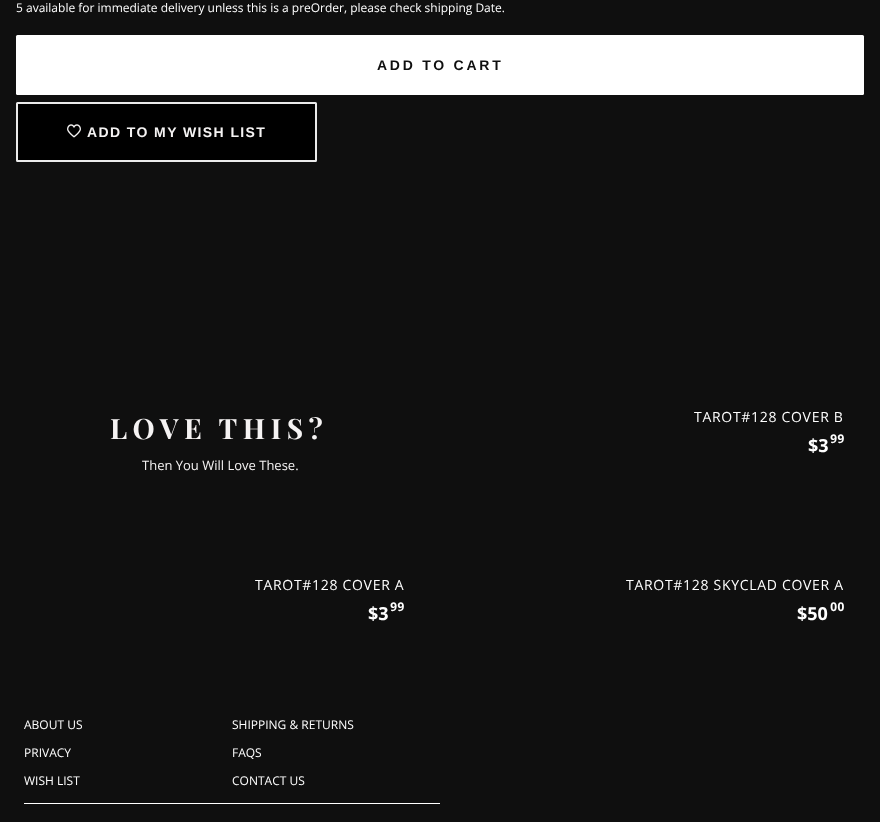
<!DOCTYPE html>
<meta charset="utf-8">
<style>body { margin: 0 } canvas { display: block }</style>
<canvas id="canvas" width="880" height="822"></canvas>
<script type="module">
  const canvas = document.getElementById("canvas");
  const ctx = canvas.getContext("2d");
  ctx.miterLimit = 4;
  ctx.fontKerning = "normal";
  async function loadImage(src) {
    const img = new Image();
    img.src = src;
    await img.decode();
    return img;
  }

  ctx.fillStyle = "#0f0f0f";
  ctx.fillRect(0, 0, 880, 822);
  ctx.font = "12px Open Sans";
  ctx.fillStyle = "#ffffff";
  ctx.fillText("5 available for immediate delivery unless this is a preOrder, please check shipping Date.", 16, 12);
  ctx.beginPath();
  ctx.roundRect(16, 35, 848, 60, 1.5);
  ctx.fill();
  ctx.letterSpacing = "2.75px";
  ctx.font = "bold 14px Liberation Sans";
  ctx.fillStyle = "#0f0f0f";
  ctx.fillText("ADD TO CART", 377, 70);
  ctx.fillStyle = "#000000";
  ctx.beginPath();
  ctx.roundRect(17, 103, 299, 58, 0.5);
  ctx.fill();
  ctx.strokeStyle = "#ebebeb";
  ctx.lineWidth = 2;
  ctx.stroke();
  ctx.drawImage(await loadImage("img1.png"), 67, 124, 14, 14);
  ctx.letterSpacing = "1.4px";
  ctx.fillStyle = "#f5f3f3";
  ctx.fillText("ADD TO MY WISH LIST", 87, 137);
  ctx.letterSpacing = "5.5px";
  ctx.font = "bold 28px Playfair Display";
  ctx.fillText("LOVE THIS?", 110, 439);
  ctx.letterSpacing = "0px";
  ctx.font = "13px Open Sans";
  ctx.fillText("Then You Will Love These.", 142, 470);
  ctx.letterSpacing = "0.7px";
  ctx.font = "14px Open Sans";
  ctx.fillStyle = "#ffffff";
  ctx.fillText("TAROT#128 COVER B", 694, 422);
  ctx.letterSpacing = "0px";
  ctx.font = "bold 18px Open Sans";
  ctx.fillText("$3", 808, 452);
  ctx.font = "bold 12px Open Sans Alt";
  ctx.fillText("99", 830, 443);
  ctx.letterSpacing = "0.7px";
  ctx.font = "14px Open Sans";
  ctx.fillText("TAROT#128 COVER A", 255, 590);
  ctx.letterSpacing = "0px";
  ctx.font = "bold 18px Open Sans";
  ctx.fillText("$3", 368, 620);
  ctx.font = "bold 12px Open Sans Alt";
  ctx.fillText("99", 390, 611);
  ctx.letterSpacing = "0.7px";
  ctx.font = "14px Open Sans";
  ctx.fillText("TAROT#128 SKYCLAD COVER A", 626, 590);
  ctx.letterSpacing = "0px";
  ctx.font = "bold 18px Open Sans";
  ctx.fillText("$50", 797, 620);
  ctx.font = "bold 12px Open Sans Alt";
  ctx.fillText("00", 830, 611);
  ctx.fillRect(24, 803, 416, 1);
  ctx.font = "12px Open Sans";
  ctx.fillText("ABOUT US", 24, 729);
  ctx.fillText("SHIPPING & RETURNS", 232, 729);
  ctx.fillText("PRIVACY", 24, 757);
  ctx.fillText("FAQS", 232, 757);
  ctx.fillText("WISH LIST", 24, 785);
  ctx.fillText("CONTACT US", 232, 785);
</script>
